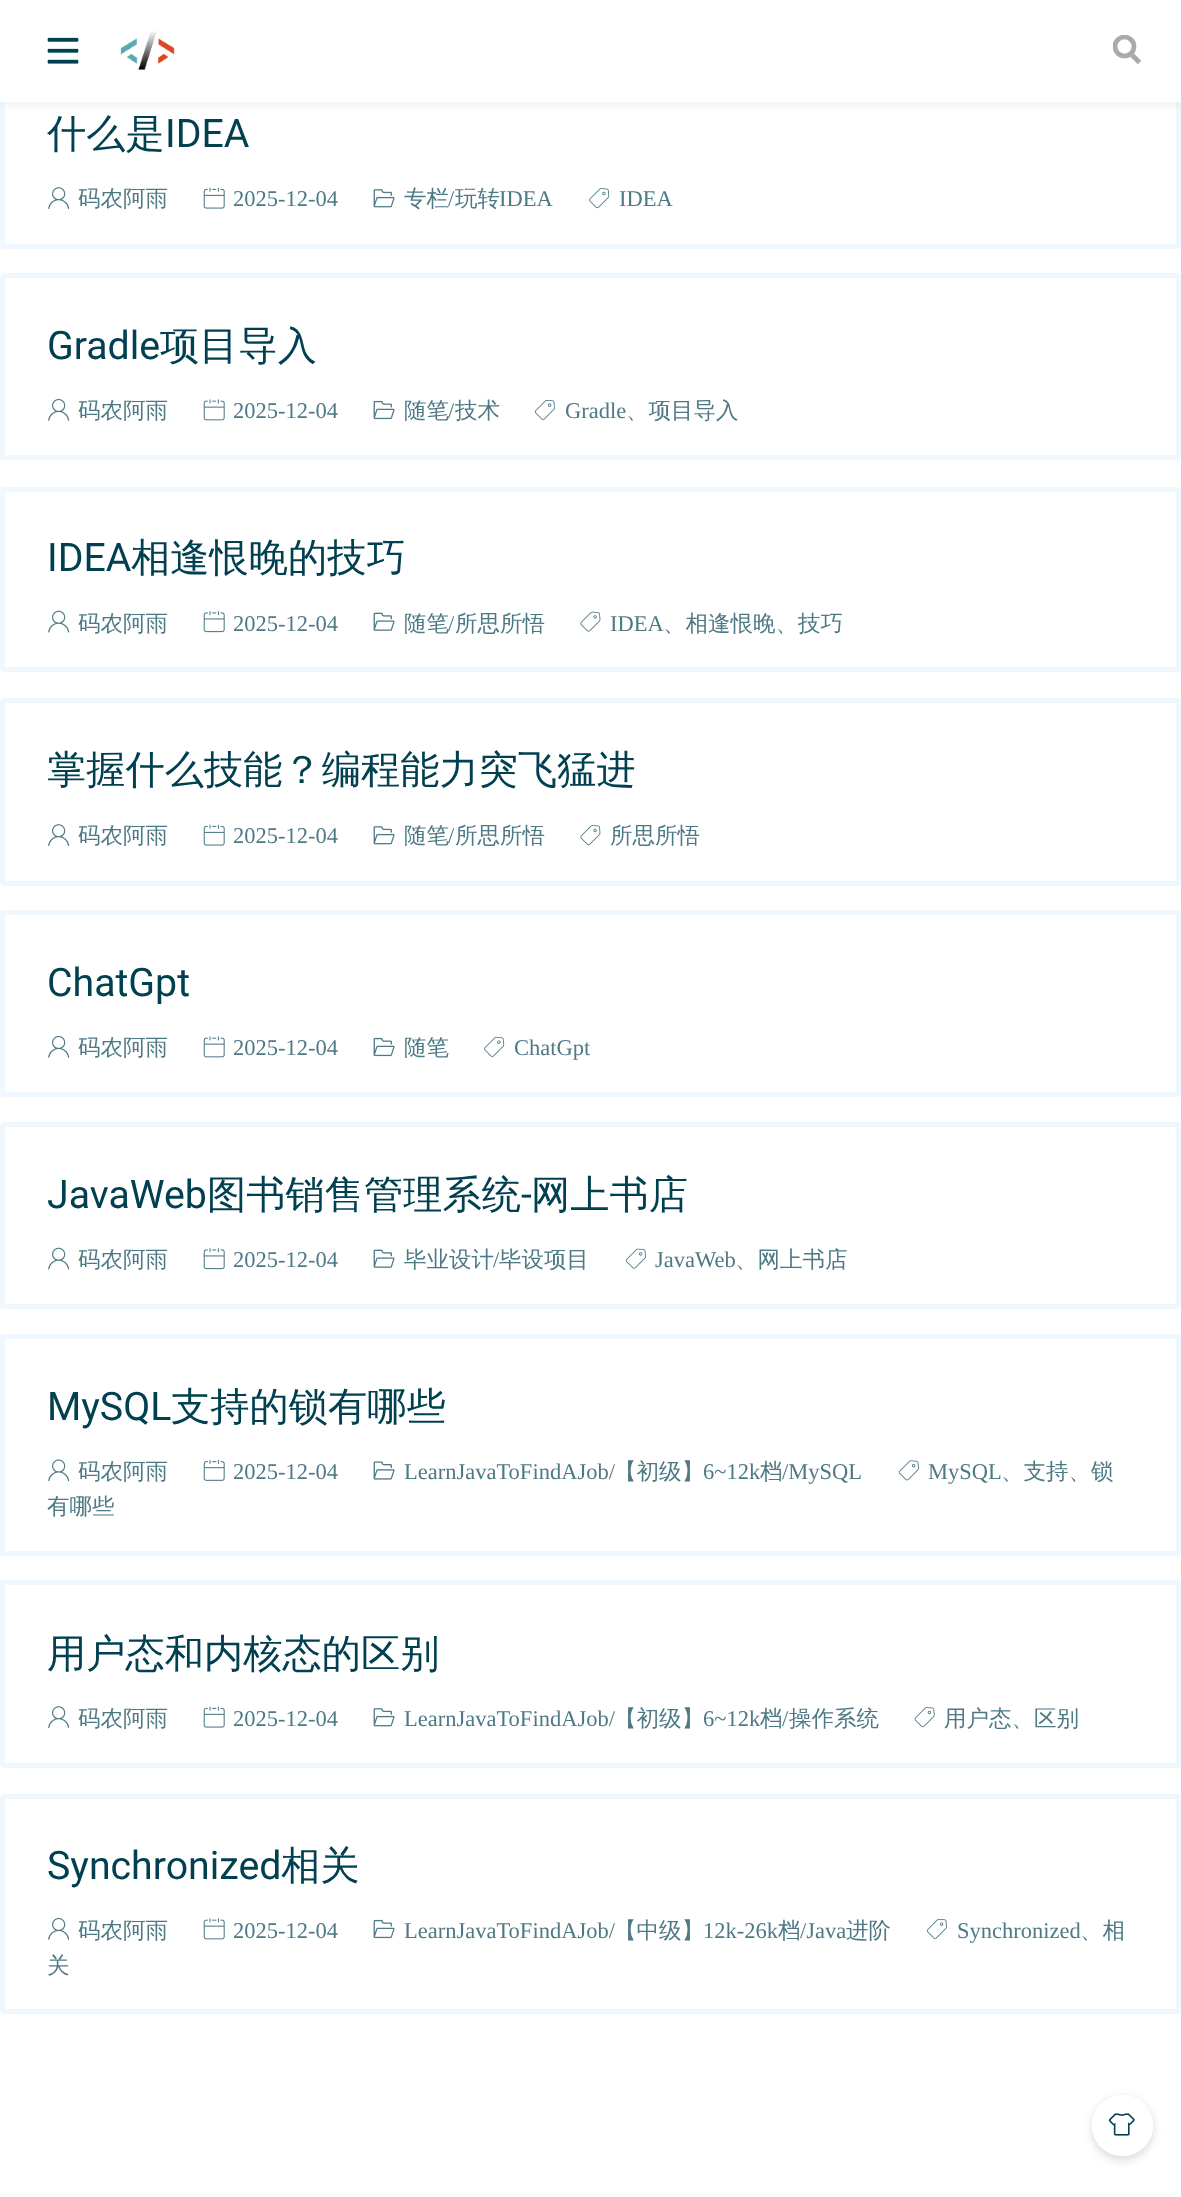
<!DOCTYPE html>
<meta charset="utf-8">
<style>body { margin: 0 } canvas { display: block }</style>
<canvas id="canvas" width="1181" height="2197"></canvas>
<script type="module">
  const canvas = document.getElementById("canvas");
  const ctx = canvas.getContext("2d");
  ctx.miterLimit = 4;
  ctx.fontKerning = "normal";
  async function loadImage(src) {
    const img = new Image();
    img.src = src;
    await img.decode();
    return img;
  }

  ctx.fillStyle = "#ffffff";
  ctx.fillRect(0, 0, 1181, 2197);
  ctx.beginPath();
  ctx.roundRect(2.5, -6.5, 1176, 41, 1.5);
  ctx.strokeStyle = "#f0f8ff";
  ctx.lineWidth = 5;
  ctx.stroke();
  ctx.beginPath();
  ctx.roundRect(2.5, 63.5, 1176, 183, 1.5);
  ctx.stroke();
  ctx.save();
  ctx.beginPath();
  ctx.moveTo(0, 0);
  ctx.lineTo(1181, 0);
  ctx.lineTo(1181, 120);
  ctx.lineTo(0, 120);
  ctx.closePath();
  ctx.moveTo(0, 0);
  ctx.lineTo(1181, 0);
  ctx.lineTo(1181, 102);
  ctx.lineTo(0, 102);
  ctx.closePath();
  ctx.clip("evenodd");
  ctx.fillStyle = "rgba(0, 0, 0, 0.06)";
  ctx.filter = "blur(4.5px)";
  ctx.beginPath();
  ctx.rect(0, 4, 1181, 101);
  ctx.fill();
  ctx.filter = "none";
  ctx.restore();
  ctx.fillStyle = "rgba(255, 255, 255, 0.9)";
  ctx.fillRect(0, 0, 1181, 102);
  ctx.drawImage(await loadImage("img1.png"), 47, 37, 32, 27);
  ctx.drawImage(await loadImage("img2.png"), 120, 31, 55, 39);
  ctx.beginPath();
  ctx.moveTo(1139.5, 62.5);
  ctx.lineTo(1130, 53);
  ctx.strokeStyle = "#aaaaaa";
  ctx.lineWidth = 4.7;
  ctx.stroke();
  ctx.save();
  ctx.beginPath();
  ctx.rect(1113, 35, 28, 32);
  ctx.clip();
  ctx.beginPath();
  ctx.arc(1124.5, 46.5, 9.5, 0, Math.PI * 2);
  ctx.stroke();
  ctx.restore();
  ctx.font = "500 39.25px WenQuanYi Zen Hei";
  ctx.fillStyle = "#004050";
  ctx.fillText("什么是", 47, 147);
  ctx.font = "39.25px Roboto";
  ctx.fillText("IDEA", 165, 147);
  ctx.drawImage(await loadImage("img3.png"), 48, 187, 22, 22);
  ctx.font = "500 22.5px WenQuanYi Zen Hei";
  ctx.fillStyle = "#4d7985";
  ctx.fillText("码农阿雨", 78, 206);
  ctx.drawImage(await loadImage("img4.png"), 203, 187, 22, 22);
  ctx.font = "22.5px Liberation Serif";
  ctx.fillText("2025-12-04", 233, 206);
  ctx.drawImage(await loadImage("img5.png"), 373, 189, 22, 19);
  ctx.font = "500 22.5px WenQuanYi Zen Hei";
  ctx.fillText("专栏", 404, 206);
  ctx.font = "22.5px Liberation Serif";
  ctx.fillText("/", 448, 206);
  ctx.font = "500 22.5px WenQuanYi Zen Hei";
  ctx.fillText("玩转", 455, 206);
  ctx.font = "22.5px Liberation Serif";
  ctx.fillText("IDEA", 499, 206);
  ctx.drawImage(await loadImage("img6.png"), 589, 188, 21, 21);
  ctx.fillText("IDEA", 619, 206);
  ctx.beginPath();
  ctx.roundRect(2.5, 275.5, 1176, 182, 1.5);
  ctx.strokeStyle = "#f0f8ff";
  ctx.lineWidth = 5;
  ctx.stroke();
  ctx.font = "39.25px Roboto";
  ctx.fillStyle = "#004050";
  ctx.fillText("Gradle", 47, 359);
  ctx.font = "500 39.25px WenQuanYi Zen Hei";
  ctx.fillText("项目导入", 160, 359);
  ctx.drawImage(await loadImage("img7.png"), 48, 399, 22, 22);
  ctx.font = "500 22.5px WenQuanYi Zen Hei";
  ctx.fillStyle = "#4d7985";
  ctx.fillText("码农阿雨", 78, 418);
  ctx.drawImage(await loadImage("img8.png"), 203, 399, 22, 22);
  ctx.font = "22.5px Liberation Serif";
  ctx.fillText("2025-12-04", 233, 418);
  ctx.drawImage(await loadImage("img9.png"), 373, 400, 22, 20);
  ctx.font = "500 22.5px WenQuanYi Zen Hei";
  ctx.fillText("随笔", 404, 418);
  ctx.font = "22.5px Liberation Serif";
  ctx.fillText("/", 448, 418);
  ctx.font = "500 22.5px WenQuanYi Zen Hei";
  ctx.fillText("技术", 455, 418);
  ctx.drawImage(await loadImage("img10.png"), 534, 399, 21, 21);
  ctx.font = "22.5px Liberation Serif";
  ctx.fillText("Gradle", 565, 418);
  ctx.font = "500 22.5px WenQuanYi Zen Hei";
  ctx.fillText("、项目导入", 626, 418);
  ctx.beginPath();
  ctx.roundRect(2.5, 489.5, 1176, 180, 1.5);
  ctx.stroke();
  ctx.font = "39.25px Roboto";
  ctx.fillStyle = "#004050";
  ctx.fillText("IDEA", 47, 571);
  ctx.font = "500 39.25px WenQuanYi Zen Hei";
  ctx.fillText("相逢恨晚的技巧", 131, 571);
  ctx.drawImage(await loadImage("img11.png"), 48, 610, 22, 23);
  ctx.font = "500 22.5px WenQuanYi Zen Hei";
  ctx.fillStyle = "#4d7985";
  ctx.fillText("码农阿雨", 78, 631);
  ctx.drawImage(await loadImage("img12.png"), 203, 611, 22, 22);
  ctx.font = "22.5px Liberation Serif";
  ctx.fillText("2025-12-04", 233, 631);
  ctx.drawImage(await loadImage("img13.png"), 373, 612, 22, 19);
  ctx.font = "500 22.5px WenQuanYi Zen Hei";
  ctx.fillText("随笔", 404, 631);
  ctx.font = "22.5px Liberation Serif";
  ctx.fillText("/", 448, 631);
  ctx.font = "500 22.5px WenQuanYi Zen Hei";
  ctx.fillText("所思所悟", 455, 631);
  ctx.drawImage(await loadImage("img14.png"), 580, 611, 21, 21);
  ctx.font = "22.5px Liberation Serif";
  ctx.fillText("IDEA", 610, 631);
  ctx.font = "500 22.5px WenQuanYi Zen Hei";
  ctx.fillText("、相逢恨晚、技巧", 663, 631);
  ctx.beginPath();
  ctx.roundRect(2.5, 700.5, 1176, 183, 1.5);
  ctx.stroke();
  ctx.font = "500 39.25px WenQuanYi Zen Hei";
  ctx.fillStyle = "#004050";
  ctx.fillText("掌握什么技能？编程能力突飞猛进", 47, 783);
  ctx.drawImage(await loadImage("img3.png"), 48, 824, 22, 22);
  ctx.font = "500 22.5px WenQuanYi Zen Hei";
  ctx.fillStyle = "#4d7985";
  ctx.fillText("码农阿雨", 78, 843);
  ctx.drawImage(await loadImage("img4.png"), 203, 824, 22, 22);
  ctx.font = "22.5px Liberation Serif";
  ctx.fillText("2025-12-04", 233, 843);
  ctx.drawImage(await loadImage("img5.png"), 373, 826, 22, 19);
  ctx.font = "500 22.5px WenQuanYi Zen Hei";
  ctx.fillText("随笔", 404, 843);
  ctx.font = "22.5px Liberation Serif";
  ctx.fillText("/", 448, 843);
  ctx.font = "500 22.5px WenQuanYi Zen Hei";
  ctx.fillText("所思所悟", 455, 843);
  ctx.drawImage(await loadImage("img15.png"), 580, 825, 21, 21);
  ctx.fillText("所思所悟", 610, 843);
  ctx.beginPath();
  ctx.roundRect(2.5, 912.5, 1176, 182, 1.5);
  ctx.stroke();
  ctx.font = "39.25px Roboto";
  ctx.fillStyle = "#004050";
  ctx.fillText("ChatGpt", 47, 996);
  ctx.drawImage(await loadImage("img7.png"), 48, 1036, 22, 22);
  ctx.font = "500 22.5px WenQuanYi Zen Hei";
  ctx.fillStyle = "#4d7985";
  ctx.fillText("码农阿雨", 78, 1055);
  ctx.drawImage(await loadImage("img8.png"), 203, 1036, 22, 22);
  ctx.font = "22.5px Liberation Serif";
  ctx.fillText("2025-12-04", 233, 1055);
  ctx.drawImage(await loadImage("img9.png"), 373, 1037, 22, 20);
  ctx.font = "500 22.5px WenQuanYi Zen Hei";
  ctx.fillText("随笔", 404, 1055);
  ctx.drawImage(await loadImage("img16.png"), 484, 1036, 21, 21);
  ctx.font = "22.5px Liberation Serif";
  ctx.fillText("ChatGpt", 514, 1055);
  ctx.beginPath();
  ctx.roundRect(2.5, 1124.5, 1176, 182, 1.5);
  ctx.stroke();
  ctx.font = "39.25px Roboto";
  ctx.fillStyle = "#004050";
  ctx.fillText("JavaWeb", 47, 1208);
  ctx.font = "500 39.25px WenQuanYi Zen Hei";
  ctx.fillText("图书销售管理系统", 207, 1208);
  ctx.font = "39.25px Roboto";
  ctx.fillText("-", 521, 1208);
  ctx.font = "500 39.25px WenQuanYi Zen Hei";
  ctx.fillText("网上书店", 531, 1208);
  ctx.drawImage(await loadImage("img11.png"), 48, 1247, 22, 23);
  ctx.font = "500 22.5px WenQuanYi Zen Hei";
  ctx.fillStyle = "#4d7985";
  ctx.fillText("码农阿雨", 78, 1267);
  ctx.drawImage(await loadImage("img12.png"), 203, 1248, 22, 22);
  ctx.font = "22.5px Liberation Serif";
  ctx.fillText("2025-12-04", 233, 1267);
  ctx.drawImage(await loadImage("img13.png"), 373, 1249, 22, 19);
  ctx.font = "500 22.5px WenQuanYi Zen Hei";
  ctx.fillText("毕业设计", 404, 1267);
  ctx.font = "22.5px Liberation Serif";
  ctx.fillText("/", 493, 1267);
  ctx.font = "500 22.5px WenQuanYi Zen Hei";
  ctx.fillText("毕设项目", 499, 1267);
  ctx.drawImage(await loadImage("img17.png"), 625, 1248, 21, 21);
  ctx.font = "22.5px Liberation Serif";
  ctx.fillText("JavaWeb", 655, 1267);
  ctx.font = "500 22.5px WenQuanYi Zen Hei";
  ctx.fillText("、网上书店", 735, 1267);
  ctx.beginPath();
  ctx.roundRect(2.5, 1336.5, 1176, 217, 1.5);
  ctx.stroke();
  ctx.font = "39.25px Roboto";
  ctx.fillStyle = "#004050";
  ctx.fillText("MySQL", 47, 1420);
  ctx.font = "500 39.25px WenQuanYi Zen Hei";
  ctx.fillText("支持的锁有哪些", 171, 1420);
  ctx.drawImage(await loadImage("img18.png"), 48, 1459, 22, 23);
  ctx.font = "500 22.5px WenQuanYi Zen Hei";
  ctx.fillStyle = "#4d7985";
  ctx.fillText("码农阿雨", 78, 1479);
  ctx.drawImage(await loadImage("img19.png"), 203, 1459, 22, 22);
  ctx.font = "22.5px Liberation Serif";
  ctx.fillText("2025-12-04", 233, 1479);
  ctx.drawImage(await loadImage("img20.png"), 373, 1461, 22, 19);
  ctx.fillText("LearnJavaToFindAJob/", 404, 1479);
  ctx.font = "500 22.5px WenQuanYi Zen Hei";
  ctx.fillText("【初级】", 614, 1479);
  ctx.font = "22.5px Liberation Serif";
  ctx.fillText("6~12k", 703, 1479);
  ctx.font = "500 22.5px WenQuanYi Zen Hei";
  ctx.fillText("档", 760, 1479);
  ctx.font = "22.5px Liberation Serif";
  ctx.fillText("/MySQL", 782, 1479);
  ctx.drawImage(await loadImage("img21.png"), 898, 1460, 21, 21);
  ctx.fillText("MySQL", 928, 1479);
  ctx.font = "500 22.5px WenQuanYi Zen Hei";
  ctx.fillText("、支持、锁", 1001, 1479);
  ctx.fillText("有哪些", 47, 1514);
  ctx.beginPath();
  ctx.roundRect(2.5, 1582.5, 1176, 183, 1.5);
  ctx.stroke();
  ctx.font = "500 39.25px WenQuanYi Zen Hei";
  ctx.fillStyle = "#004050";
  ctx.fillText("用户态和内核态的区别", 47, 1667);
  ctx.drawImage(await loadImage("img3.png"), 48, 1706, 22, 22);
  ctx.font = "500 22.5px WenQuanYi Zen Hei";
  ctx.fillStyle = "#4d7985";
  ctx.fillText("码农阿雨", 78, 1726);
  ctx.drawImage(await loadImage("img4.png"), 203, 1706, 22, 22);
  ctx.font = "22.5px Liberation Serif";
  ctx.fillText("2025-12-04", 233, 1726);
  ctx.drawImage(await loadImage("img5.png"), 373, 1708, 22, 19);
  ctx.fillText("LearnJavaToFindAJob/", 404, 1726);
  ctx.font = "500 22.5px WenQuanYi Zen Hei";
  ctx.fillText("【初级】", 614, 1726);
  ctx.font = "22.5px Liberation Serif";
  ctx.fillText("6~12k", 703, 1726);
  ctx.font = "500 22.5px WenQuanYi Zen Hei";
  ctx.fillText("档", 760, 1726);
  ctx.font = "22.5px Liberation Serif";
  ctx.fillText("/", 782, 1726);
  ctx.font = "500 22.5px WenQuanYi Zen Hei";
  ctx.fillText("操作系统", 789, 1726);
  ctx.drawImage(await loadImage("img22.png"), 914, 1707, 21, 21);
  ctx.fillText("用户态、区别", 944, 1726);
  ctx.beginPath();
  ctx.roundRect(2.5, 1796.5, 1176, 215, 1.5);
  ctx.stroke();
  ctx.font = "39.25px Roboto";
  ctx.fillStyle = "#004050";
  ctx.fillText("Synchronized", 47, 1879);
  ctx.font = "500 39.25px WenQuanYi Zen Hei";
  ctx.fillText("相关", 281, 1879);
  ctx.drawImage(await loadImage("img7.png"), 48, 1918, 22, 22);
  ctx.font = "500 22.5px WenQuanYi Zen Hei";
  ctx.fillStyle = "#4d7985";
  ctx.fillText("码农阿雨", 78, 1938);
  ctx.drawImage(await loadImage("img8.png"), 203, 1918, 22, 22);
  ctx.font = "22.5px Liberation Serif";
  ctx.fillText("2025-12-04", 233, 1938);
  ctx.drawImage(await loadImage("img9.png"), 373, 1919, 22, 20);
  ctx.fillText("LearnJavaToFindAJob/", 404, 1938);
  ctx.font = "500 22.5px WenQuanYi Zen Hei";
  ctx.fillText("【中级】", 614, 1938);
  ctx.font = "22.5px Liberation Serif";
  ctx.fillText("12k-26k", 703, 1938);
  ctx.font = "500 22.5px WenQuanYi Zen Hei";
  ctx.fillText("档", 778, 1938);
  ctx.font = "22.5px Liberation Serif";
  ctx.fillText("/Java", 800, 1938);
  ctx.font = "500 22.5px WenQuanYi Zen Hei";
  ctx.fillText("进阶", 846, 1938);
  ctx.drawImage(await loadImage("img10.png"), 926, 1918, 21, 21);
  ctx.font = "22.5px Liberation Serif";
  ctx.fillText("Synchronized", 957, 1938);
  ctx.font = "500 22.5px WenQuanYi Zen Hei";
  ctx.fillText("、相", 1080, 1938);
  ctx.fillText("关", 47, 1973);
  ctx.save();
  ctx.beginPath();
  ctx.moveTo(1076, 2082);
  ctx.lineTo(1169, 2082);
  ctx.lineTo(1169, 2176);
  ctx.lineTo(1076, 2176);
  ctx.closePath();
  ctx.moveTo(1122.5, 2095);
  ctx.bezierCurveTo(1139.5, 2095, 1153, 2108.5, 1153, 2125.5);
  ctx.bezierCurveTo(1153, 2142.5, 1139.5, 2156, 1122.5, 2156);
  ctx.bezierCurveTo(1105.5, 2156, 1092, 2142.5, 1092, 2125.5);
  ctx.bezierCurveTo(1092, 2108.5, 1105.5, 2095, 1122.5, 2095);
  ctx.closePath();
  ctx.clip("evenodd");
  ctx.fillStyle = "rgba(0, 0, 0, 0.15)";
  ctx.filter = "blur(5px)";
  ctx.beginPath();
  ctx.roundRect(1092, 2098, 61, 62, 30.5);
  ctx.fill();
  ctx.filter = "none";
  ctx.restore();
  ctx.fillStyle = "rgba(255, 255, 255, 0.9)";
  ctx.beginPath();
  ctx.arc(1122.5, 2125.5, 30.5, 0, Math.PI * 2);
  ctx.fill();
  ctx.drawImage(await loadImage("img23.png"), 1108, 2113, 27, 23);
</script>
